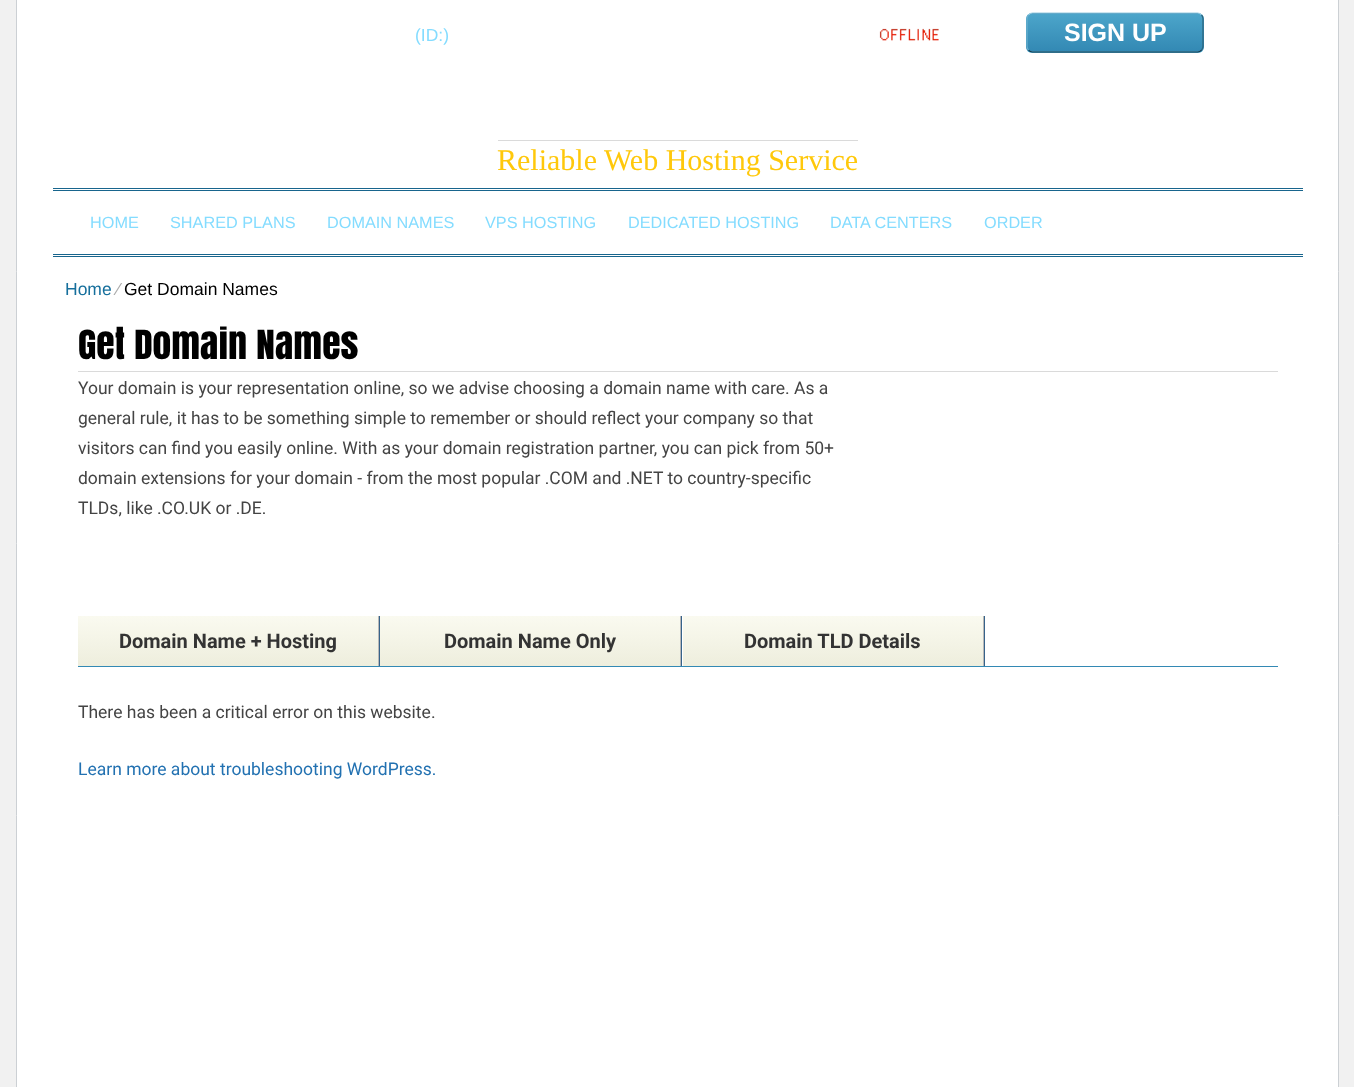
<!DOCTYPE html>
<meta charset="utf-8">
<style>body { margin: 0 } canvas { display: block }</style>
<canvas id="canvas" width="1354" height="1087"></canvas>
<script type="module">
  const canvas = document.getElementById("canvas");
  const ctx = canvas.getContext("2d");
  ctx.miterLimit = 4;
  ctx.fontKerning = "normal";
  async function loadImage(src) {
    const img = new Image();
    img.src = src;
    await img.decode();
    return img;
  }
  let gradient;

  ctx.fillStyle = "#f1f1f1";
  ctx.fillRect(0, 0, 1354, 1087);
  ctx.fillStyle = "#ffffff";
  ctx.beginPath();
  ctx.rect(16.5, -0.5, 1322, 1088);
  ctx.fill();
  ctx.strokeStyle = "#ccd0d4";
  ctx.stroke();
  ctx.font = "17.5px Liberation Sans";
  ctx.fillStyle = "#84dcff";
  ctx.fillText("(ID:)", 415, 41);
  ctx.drawImage(await loadImage("img1.png"), 879, 28, 60, 13);
  ctx.save();
  ctx.beginPath();
  ctx.roundRect(1026, 13, 178, 40, 6);
  ctx.clip();
  gradient = ctx.createLinearGradient(1028, 14, 1028, -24);
  gradient.addColorStop(0, "#3389b4");
  gradient.addColorStop(1, "#4ca5ca");
  ctx.fillStyle = gradient;
  ctx.fillRect(1026, 13, 178, 1);
  gradient = ctx.createLinearGradient(1028, 51, 1028, 14);
  gradient.addColorStop(0, "#3389b4");
  gradient.addColorStop(1, "#4ca5ca");
  ctx.fillStyle = gradient;
  ctx.fillRect(1026, 14, 178, 37);
  gradient = ctx.createLinearGradient(1028, 89, 1028, 51);
  gradient.addColorStop(0, "#3389b4");
  gradient.addColorStop(1, "#4ca5ca");
  ctx.fillStyle = gradient;
  ctx.fillRect(1026, 51, 178, 2);
  ctx.restore();
  ctx.beginPath();
  ctx.moveTo(1028.5, 15);
  ctx.bezierCurveTo(1029.5, 13.5, 1031, 13, 1032.5, 13);
  ctx.lineTo(1197.5, 13);
  ctx.bezierCurveTo(1199, 13, 1200.5, 13.5, 1201.5, 15);
  ctx.strokeStyle = "#98cce0";
  ctx.lineWidth = 1.2;
  ctx.stroke();
  ctx.beginPath();
  ctx.moveTo(1201.5, 15);
  ctx.bezierCurveTo(1202.5, 16, 1203, 17.5, 1203, 18.5);
  ctx.lineTo(1203, 46);
  ctx.bezierCurveTo(1203, 47.5, 1202.5, 49, 1201.5, 50);
  ctx.strokeStyle = "#2a627a";
  ctx.stroke();
  ctx.beginPath();
  ctx.moveTo(1201.5, 50);
  ctx.bezierCurveTo(1200.5, 51.5, 1199, 52, 1197.5, 52);
  ctx.lineTo(1032.5, 52);
  ctx.bezierCurveTo(1031, 52, 1029.5, 51.5, 1028.5, 50);
  ctx.strokeStyle = "#15394b";
  ctx.stroke();
  ctx.beginPath();
  ctx.moveTo(1028.5, 50);
  ctx.bezierCurveTo(1027.5, 49, 1027, 47.5, 1027, 46);
  ctx.lineTo(1027, 19);
  ctx.bezierCurveTo(1027, 17.5, 1027.5, 16, 1028.5, 15);
  ctx.strokeStyle = "#6bb1cf";
  ctx.stroke();
  ctx.font = "bold 25px Liberation Sans";
  ctx.fillStyle = "#ffffff";
  ctx.fillText("SIGN UP", 1064, 41);
  ctx.fillStyle = "#dadada";
  ctx.fillRect(498, 140, 360, 1);
  ctx.font = "30px Liberation Serif";
  ctx.fillStyle = "#ffc80b";
  ctx.fillText("Reliable Web Hosting Service", 497, 170);
  ctx.fillStyle = "#18658d";
  ctx.fillRect(53, 188, 1250, 1);
  ctx.fillRect(53, 190, 1250, 1);
  ctx.fillRect(53, 254, 1250, 1);
  ctx.fillRect(53, 256, 1250, 1);
  ctx.font = "16.25px Liberation Sans";
  ctx.fillStyle = "#84dcff";
  ctx.fillText("HOME", 90, 228);
  ctx.fillText("SHARED PLANS", 170, 228);
  ctx.fillText("DOMAIN NAMES", 327, 228);
  ctx.fillText("VPS HOSTING", 485, 228);
  ctx.fillText("DEDICATED HOSTING", 628, 228);
  ctx.fillText("DATA CENTERS", 830, 228);
  ctx.fillText("ORDER", 984, 228);
  ctx.font = "17.5px Liberation Sans";
  ctx.fillStyle = "#166f9c";
  ctx.fillText("Home", 65, 295);
  ctx.fillStyle = "#aaaaaa";
  ctx.fillText("⁄", 117, 295);
  ctx.fillStyle = "#000000";
  ctx.fillText("Get Domain Names", 124, 295);
  ctx.fillStyle = "#dadada";
  ctx.fillRect(78, 371, 1200, 1);
  ctx.font = "37.5px Anton";
  ctx.fillStyle = "#000000";
  ctx.fillText("Get Domain Names", 78, 359);
  ctx.font = "17.5px Roboto";
  ctx.fillStyle = "#444444";
  ctx.fillText("Your domain is your representation online, so we advise choosing a domain name with care. As a", 78, 394);
  ctx.fillText("general rule, it has to be something simple to remember or should reflect your company so that", 78, 424);
  ctx.fillText("visitors can find you easily online. With as your domain registration partner, you can pick from 50+", 78, 454);
  ctx.fillText("domain extensions for your domain - from the most popular .COM and .NET to country-specific", 78, 484);
  ctx.fillText("TLDs, like .CO.UK or .DE.", 78, 514);
  ctx.fillStyle = "#3389b4";
  ctx.fillRect(78, 666, 1200, 1);
  ctx.fillStyle = "#37638a";
  ctx.fillRect(379, 616, 1, 50);
  gradient = ctx.createLinearGradient(78, 666, 78, 616);
  gradient.addColorStop(0, "#eeeedd");
  gradient.addColorStop(1, "#fafaf0");
  ctx.fillStyle = gradient;
  ctx.fillRect(78, 616, 300, 50);
  ctx.fillStyle = "#b8b8b8";
  ctx.fillRect(378, 616, 1, 50);
  ctx.font = "bold 20px Roboto";
  ctx.fillStyle = "#333333";
  ctx.fillText("Domain Name + Hosting", 119, 648);
  ctx.fillStyle = "#37638a";
  ctx.fillRect(681, 616, 1, 50);
  gradient = ctx.createLinearGradient(380, 666, 380, 616);
  gradient.addColorStop(0, "#eeeedd");
  gradient.addColorStop(1, "#fafaf0");
  ctx.fillStyle = gradient;
  ctx.fillRect(380, 616, 300, 50);
  ctx.fillStyle = "#b8b8b8";
  ctx.fillRect(680, 616, 1, 50);
  ctx.fillStyle = "#333333";
  ctx.fillText("Domain Name Only", 444, 648);
  ctx.fillStyle = "#37638a";
  ctx.fillRect(984, 616, 1, 50);
  gradient = ctx.createLinearGradient(683, 666, 683, 616);
  gradient.addColorStop(0, "#eeeedd");
  gradient.addColorStop(1, "#fafaf0");
  ctx.fillStyle = gradient;
  ctx.fillRect(683, 616, 300, 50);
  ctx.fillStyle = "#b8b8b8";
  ctx.fillRect(983, 616, 1, 50);
  ctx.fillStyle = "#333333";
  ctx.fillText("Domain TLD Details", 744, 648);
  ctx.font = "17.5px Roboto";
  ctx.fillStyle = "#444444";
  ctx.fillText("There has been a critical error on this website.", 78, 718);
  ctx.fillStyle = "#2271b1";
  ctx.fillText("Learn more about troubleshooting WordPress.", 78, 775);
</script>
